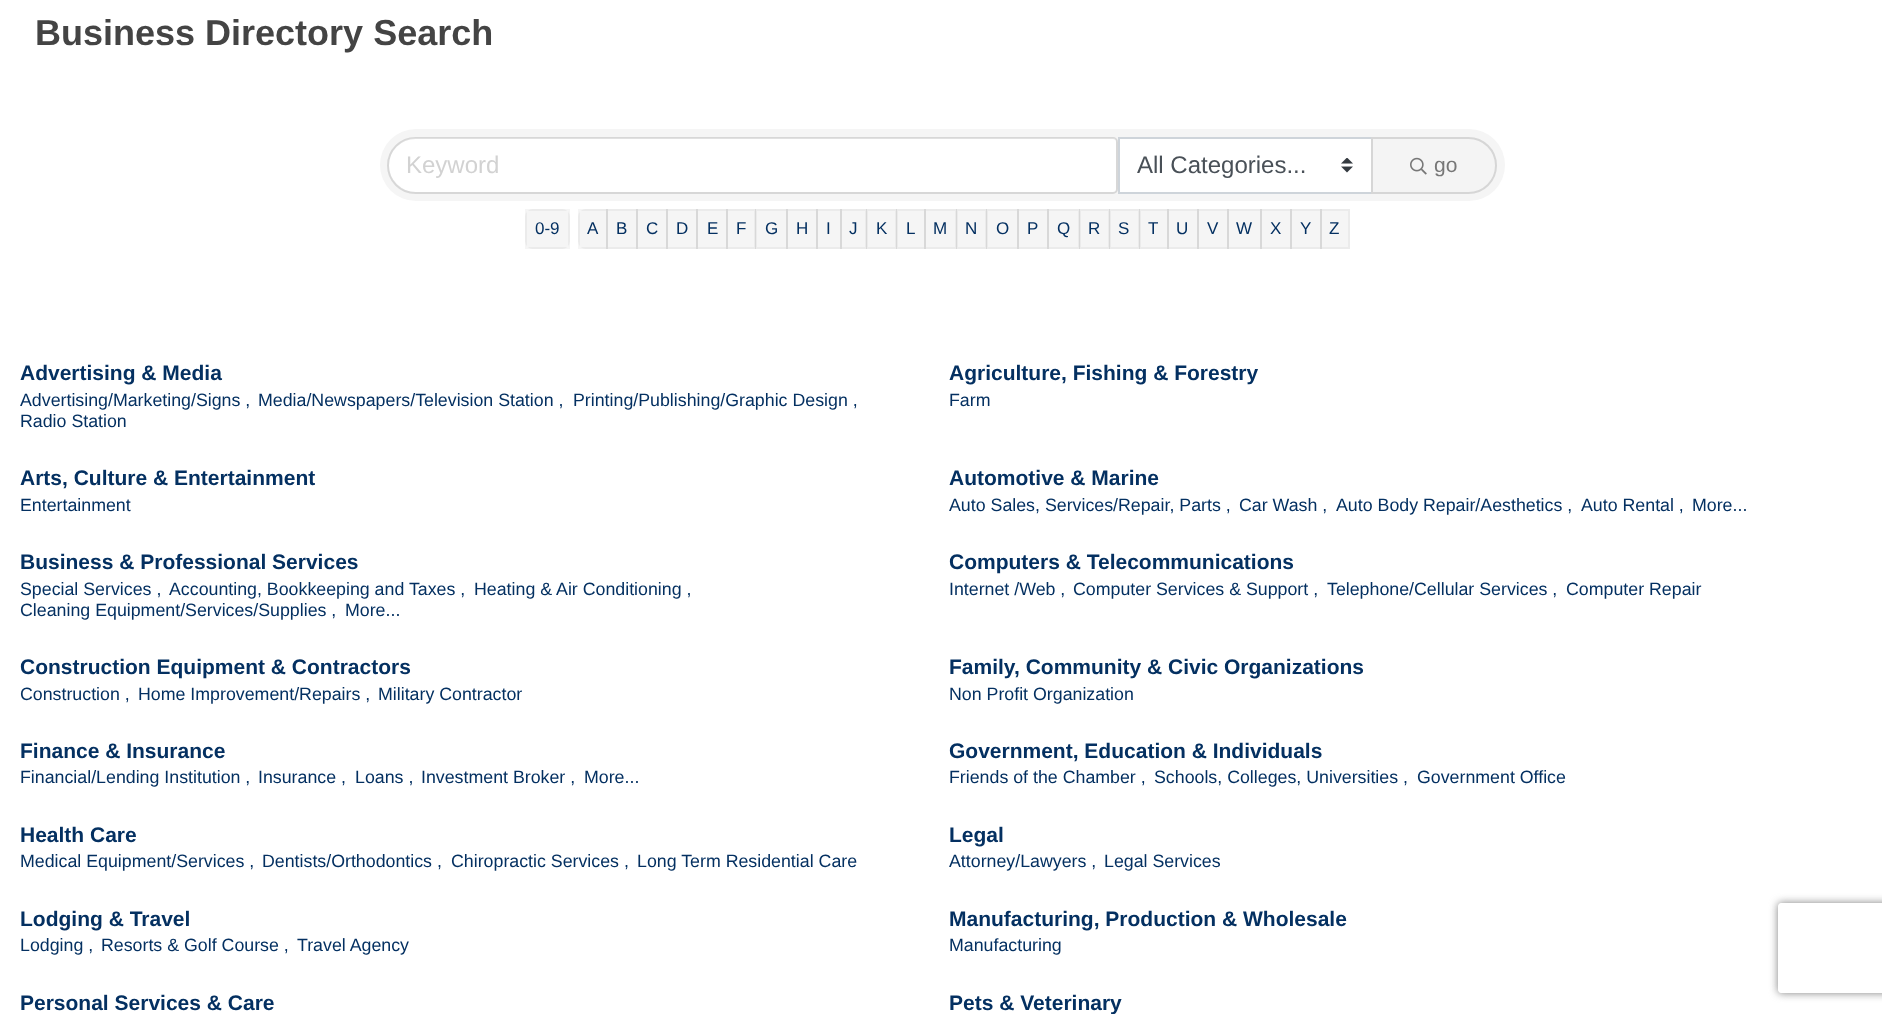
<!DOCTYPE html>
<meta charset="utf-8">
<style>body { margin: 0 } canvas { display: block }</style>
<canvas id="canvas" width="1882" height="1014"></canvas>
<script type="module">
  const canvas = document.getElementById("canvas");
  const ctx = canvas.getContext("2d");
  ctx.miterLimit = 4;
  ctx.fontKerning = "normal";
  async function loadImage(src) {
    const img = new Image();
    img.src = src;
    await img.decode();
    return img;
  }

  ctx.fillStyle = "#ffffff";
  ctx.fillRect(0, 0, 1882, 1014);
  ctx.font = "bold 36px Liberation Sans";
  ctx.fillStyle = "#444444";
  ctx.fillText("Business Directory Search", 35, 45);
  ctx.fillStyle = "#f5f5f5";
  ctx.beginPath();
  ctx.roundRect(380, 129, 1125, 72, 36);
  ctx.fill();
  ctx.fillStyle = "#ffffff";
  ctx.beginPath();
  ctx.roundRect(389, 138, 727, 54, [27, 3, 3, 27]);
  ctx.fill();
  ctx.beginPath();
  ctx.roundRect(388, 138, 729, 55, [27.5, 4, 4, 27.5]);
  ctx.strokeStyle = "rgba(0, 0, 0, 0.12)";
  ctx.lineWidth = 2;
  ctx.stroke();
  ctx.font = "24px Liberation Sans";
  ctx.fillStyle = "#d2d2d2";
  ctx.fillText("Keyword", 406, 173);
  ctx.fillStyle = "#ffffff";
  ctx.fillRect(1120, 139, 251, 53);
  ctx.drawImage(await loadImage("img1.png"), 1341, 158, 12, 15);
  ctx.strokeStyle = "#ced4da";
  ctx.strokeRect(1119, 138, 253, 55);
  ctx.fillStyle = "#495057";
  ctx.fillText("All Categories...", 1137, 173);
  ctx.fillStyle = "#f4f4f4";
  ctx.beginPath();
  ctx.roundRect(1372, 138, 124, 55, [0, 27.5, 27.5, 0]);
  ctx.fill();
  ctx.strokeStyle = "#d6d6d6";
  ctx.stroke();
  ctx.drawImage(await loadImage("img2.png"), 1410, 157, 17, 18);
  ctx.font = "21px Liberation Sans";
  ctx.fillStyle = "#777777";
  ctx.fillText("go", 1434, 172);
  ctx.fillStyle = "#f5f5f5";
  ctx.beginPath();
  ctx.roundRect(525, 209, 45, 40, 8);
  ctx.fill();
  ctx.strokeStyle = "rgba(0, 0, 0, 0.04)";
  ctx.strokeRect(526, 210, 43, 38);
  ctx.font = "17px Liberation Sans";
  ctx.fillStyle = "#043061";
  ctx.fillText("0-9", 535, 234);
  ctx.fillStyle = "#f5f5f5";
  ctx.beginPath();
  ctx.roundRect(578, 209, 30, 40, [8, 0, 0, 8]);
  ctx.fill();
  ctx.strokeRect(579, 210, 28, 38);
  ctx.fillStyle = "#043061";
  ctx.fillText("A", 587, 234);
  ctx.fillStyle = "rgba(0, 0, 0, 0.04)";
  ctx.fillRect(606, 209, 32, 40);
  ctx.strokeRect(607, 210, 30, 38);
  ctx.fillStyle = "#043061";
  ctx.fillText("B", 616, 234);
  ctx.fillStyle = "rgba(0, 0, 0, 0.04)";
  ctx.fillRect(636, 209, 32, 40);
  ctx.strokeRect(637, 210, 30, 38);
  ctx.fillStyle = "#043061";
  ctx.fillText("C", 646, 234);
  ctx.fillStyle = "rgba(0, 0, 0, 0.04)";
  ctx.fillRect(666, 209, 32, 40);
  ctx.strokeRect(667, 210, 30, 38);
  ctx.fillStyle = "#043061";
  ctx.fillText("D", 676, 234);
  ctx.fillStyle = "rgba(0, 0, 0, 0.04)";
  ctx.fillRect(696, 209, 32, 40);
  ctx.strokeRect(697, 210, 30, 38);
  ctx.fillStyle = "#043061";
  ctx.fillText("E", 707, 234);
  ctx.fillStyle = "rgba(0, 0, 0, 0.04)";
  ctx.fillRect(726, 209, 30, 40);
  ctx.strokeRect(727, 210, 28, 38);
  ctx.fillStyle = "#043061";
  ctx.fillText("F", 736, 234);
  ctx.fillStyle = "rgba(0, 0, 0, 0.04)";
  ctx.fillRect(755, 209, 33, 40);
  ctx.strokeRect(756, 210, 31, 38);
  ctx.fillStyle = "#043061";
  ctx.fillText("G", 765, 234);
  ctx.fillStyle = "rgba(0, 0, 0, 0.04)";
  ctx.fillRect(786, 209, 32, 40);
  ctx.strokeRect(787, 210, 30, 38);
  ctx.fillStyle = "#043061";
  ctx.fillText("H", 796, 234);
  ctx.fillStyle = "rgba(0, 0, 0, 0.04)";
  ctx.fillRect(816, 209, 26, 40);
  ctx.strokeRect(817, 210, 24, 38);
  ctx.fillStyle = "#043061";
  ctx.fillText("I", 826, 234);
  ctx.fillStyle = "rgba(0, 0, 0, 0.04)";
  ctx.fillRect(840, 209, 27, 40);
  ctx.strokeRect(841, 210, 25, 38);
  ctx.fillStyle = "#043061";
  ctx.fillText("J", 849, 234);
  ctx.fillStyle = "rgba(0, 0, 0, 0.04)";
  ctx.fillRect(866, 209, 31, 40);
  ctx.strokeRect(867, 210, 29, 38);
  ctx.fillStyle = "#043061";
  ctx.fillText("K", 876, 234);
  ctx.fillStyle = "rgba(0, 0, 0, 0.04)";
  ctx.fillRect(896, 209, 30, 40);
  ctx.strokeRect(897, 210, 28, 38);
  ctx.fillStyle = "#043061";
  ctx.fillText("L", 906, 234);
  ctx.fillStyle = "rgba(0, 0, 0, 0.04)";
  ctx.fillRect(924, 209, 33, 40);
  ctx.strokeRect(925, 210, 31, 38);
  ctx.fillStyle = "#043061";
  ctx.fillText("M", 933, 234);
  ctx.fillStyle = "rgba(0, 0, 0, 0.04)";
  ctx.fillRect(956, 209, 31, 40);
  ctx.strokeRect(957, 210, 29, 38);
  ctx.fillStyle = "#043061";
  ctx.fillText("N", 965, 234);
  ctx.fillStyle = "rgba(0, 0, 0, 0.04)";
  ctx.fillRect(986, 209, 33, 40);
  ctx.strokeRect(987, 210, 31, 38);
  ctx.fillStyle = "#043061";
  ctx.fillText("O", 996, 234);
  ctx.fillStyle = "rgba(0, 0, 0, 0.04)";
  ctx.fillRect(1017, 209, 32, 40);
  ctx.strokeRect(1018, 210, 30, 38);
  ctx.fillStyle = "#043061";
  ctx.fillText("P", 1027, 234);
  ctx.fillStyle = "rgba(0, 0, 0, 0.04)";
  ctx.fillRect(1047, 209, 33, 40);
  ctx.strokeRect(1048, 210, 31, 38);
  ctx.fillStyle = "#043061";
  ctx.fillText("Q", 1057, 234);
  ctx.fillStyle = "rgba(0, 0, 0, 0.04)";
  ctx.fillRect(1079, 209, 31, 40);
  ctx.strokeRect(1080, 210, 29, 38);
  ctx.fillStyle = "#043061";
  ctx.fillText("R", 1088, 234);
  ctx.fillStyle = "rgba(0, 0, 0, 0.04)";
  ctx.fillRect(1109, 209, 31, 40);
  ctx.strokeRect(1110, 210, 29, 38);
  ctx.fillStyle = "#043061";
  ctx.fillText("S", 1118, 234);
  ctx.fillStyle = "rgba(0, 0, 0, 0.04)";
  ctx.fillRect(1139, 209, 30, 40);
  ctx.strokeRect(1140, 210, 28, 38);
  ctx.fillStyle = "#043061";
  ctx.fillText("T", 1148, 234);
  ctx.fillStyle = "rgba(0, 0, 0, 0.04)";
  ctx.fillRect(1167, 209, 32, 40);
  ctx.strokeRect(1168, 210, 30, 38);
  ctx.fillStyle = "#043061";
  ctx.fillText("U", 1176, 234);
  ctx.fillStyle = "rgba(0, 0, 0, 0.04)";
  ctx.fillRect(1197, 209, 32, 40);
  ctx.strokeRect(1198, 210, 30, 38);
  ctx.fillStyle = "#043061";
  ctx.fillText("V", 1207, 234);
  ctx.fillStyle = "rgba(0, 0, 0, 0.04)";
  ctx.fillRect(1227, 209, 35, 40);
  ctx.strokeRect(1228, 210, 33, 38);
  ctx.fillStyle = "#043061";
  ctx.fillText("W", 1236, 234);
  ctx.fillStyle = "rgba(0, 0, 0, 0.04)";
  ctx.fillRect(1260, 209, 32, 40);
  ctx.strokeRect(1261, 210, 30, 38);
  ctx.fillStyle = "#043061";
  ctx.fillText("X", 1270, 234);
  ctx.fillStyle = "rgba(0, 0, 0, 0.04)";
  ctx.fillRect(1290, 209, 32, 40);
  ctx.strokeRect(1291, 210, 30, 38);
  ctx.fillStyle = "#043061";
  ctx.fillText("Y", 1300, 234);
  ctx.fillStyle = "rgba(0, 0, 0, 0.04)";
  ctx.fillRect(1320, 209, 30, 40);
  ctx.strokeRect(1321, 210, 28, 38);
  ctx.fillStyle = "#043061";
  ctx.fillText("Z", 1329, 234);
  ctx.font = "bold 21px Liberation Sans";
  ctx.fillText("Advertising & Media", 20, 380);
  ctx.font = "17.8px Liberation Sans";
  ctx.fillText("Advertising/Marketing/Signs ,", 20, 406);
  ctx.fillText("Media/Newspapers/Television Station ,", 258, 406);
  ctx.fillText("Printing/Publishing/Graphic Design ,", 573, 406);
  ctx.fillText("Radio Station", 20, 427);
  ctx.font = "bold 21px Liberation Sans";
  ctx.fillText("Agriculture, Fishing & Forestry", 949, 380);
  ctx.font = "17.8px Liberation Sans";
  ctx.fillText("Farm", 949, 406);
  ctx.font = "bold 21px Liberation Sans";
  ctx.fillText("Arts, Culture & Entertainment", 20, 485);
  ctx.font = "17.8px Liberation Sans";
  ctx.fillText("Entertainment", 20, 511);
  ctx.font = "bold 21px Liberation Sans";
  ctx.fillText("Automotive & Marine", 949, 485);
  ctx.font = "17.8px Liberation Sans";
  ctx.fillText("Auto Sales, Services/Repair, Parts ,", 949, 511);
  ctx.fillText("Car Wash ,", 1239, 511);
  ctx.fillText("Auto Body Repair/Aesthetics ,", 1336, 511);
  ctx.fillText("Auto Rental ,", 1581, 511);
  ctx.fillText("More...", 1692, 511);
  ctx.font = "bold 21px Liberation Sans";
  ctx.fillText("Business & Professional Services", 20, 569);
  ctx.font = "17.8px Liberation Sans";
  ctx.fillText("Special Services ,", 20, 595);
  ctx.fillText("Accounting, Bookkeeping and Taxes ,", 169, 595);
  ctx.fillText("Heating & Air Conditioning ,", 474, 595);
  ctx.fillText("Cleaning Equipment/Services/Supplies ,", 20, 616);
  ctx.fillText("More...", 345, 616);
  ctx.font = "bold 21px Liberation Sans";
  ctx.fillText("Computers & Telecommunications", 949, 569);
  ctx.font = "17.8px Liberation Sans";
  ctx.fillText("Internet /Web ,", 949, 595);
  ctx.fillText("Computer Services & Support ,", 1073, 595);
  ctx.fillText("Telephone/Cellular Services ,", 1327, 595);
  ctx.fillText("Computer Repair", 1566, 595);
  ctx.font = "bold 21px Liberation Sans";
  ctx.fillText("Construction Equipment & Contractors", 20, 674);
  ctx.font = "17.8px Liberation Sans";
  ctx.fillText("Construction ,", 20, 700);
  ctx.fillText("Home Improvement/Repairs ,", 138, 700);
  ctx.fillText("Military Contractor", 378, 700);
  ctx.font = "bold 21px Liberation Sans";
  ctx.fillText("Family, Community & Civic Organizations", 949, 674);
  ctx.font = "17.8px Liberation Sans";
  ctx.fillText("Non Profit Organization", 949, 700);
  ctx.font = "bold 21px Liberation Sans";
  ctx.fillText("Finance & Insurance", 20, 758);
  ctx.font = "17.8px Liberation Sans";
  ctx.fillText("Financial/Lending Institution ,", 20, 783);
  ctx.fillText("Insurance ,", 258, 783);
  ctx.fillText("Loans ,", 355, 783);
  ctx.fillText("Investment Broker ,", 421, 783);
  ctx.fillText("More...", 584, 783);
  ctx.font = "bold 21px Liberation Sans";
  ctx.fillText("Government, Education & Individuals", 949, 758);
  ctx.font = "17.8px Liberation Sans";
  ctx.fillText("Friends of the Chamber ,", 949, 783);
  ctx.fillText("Schools, Colleges, Universities ,", 1154, 783);
  ctx.fillText("Government Office", 1417, 783);
  ctx.font = "bold 21px Liberation Sans";
  ctx.fillText("Health Care", 20, 842);
  ctx.font = "17.8px Liberation Sans";
  ctx.fillText("Medical Equipment/Services ,", 20, 867);
  ctx.fillText("Dentists/Orthodontics ,", 262, 867);
  ctx.fillText("Chiropractic Services ,", 451, 867);
  ctx.fillText("Long Term Residential Care", 637, 867);
  ctx.font = "bold 21px Liberation Sans";
  ctx.fillText("Legal", 949, 842);
  ctx.font = "17.8px Liberation Sans";
  ctx.fillText("Attorney/Lawyers ,", 949, 867);
  ctx.fillText("Legal Services", 1104, 867);
  ctx.font = "bold 21px Liberation Sans";
  ctx.fillText("Lodging & Travel", 20, 926);
  ctx.font = "17.8px Liberation Sans";
  ctx.fillText("Lodging ,", 20, 951);
  ctx.fillText("Resorts & Golf Course ,", 101, 951);
  ctx.fillText("Travel Agency", 297, 951);
  ctx.font = "bold 21px Liberation Sans";
  ctx.fillText("Manufacturing, Production & Wholesale", 949, 926);
  ctx.font = "17.8px Liberation Sans";
  ctx.fillText("Manufacturing", 949, 951);
  ctx.font = "bold 21px Liberation Sans";
  ctx.fillText("Personal Services & Care", 20, 1010);
  ctx.fillText("Pets & Veterinary", 949, 1010);
  ctx.save();
  ctx.beginPath();
  ctx.moveTo(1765, 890);
  ctx.lineTo(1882, 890);
  ctx.lineTo(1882, 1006);
  ctx.lineTo(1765, 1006);
  ctx.closePath();
  ctx.moveTo(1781, 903);
  ctx.lineTo(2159, 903);
  ctx.bezierCurveTo(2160.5, 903, 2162, 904.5, 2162, 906);
  ctx.lineTo(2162, 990);
  ctx.bezierCurveTo(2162, 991.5, 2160.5, 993, 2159, 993);
  ctx.lineTo(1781, 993);
  ctx.bezierCurveTo(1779.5, 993, 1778, 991.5, 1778, 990);
  ctx.lineTo(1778, 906);
  ctx.bezierCurveTo(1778, 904.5, 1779.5, 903, 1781, 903);
  ctx.closePath();
  ctx.clip("evenodd");
  ctx.fillStyle = "#808080";
  ctx.filter = "blur(4px)";
  ctx.beginPath();
  ctx.roundRect(1778, 903, 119, 90, 3);
  ctx.fill();
  ctx.filter = "none";
  ctx.restore();
</script>
